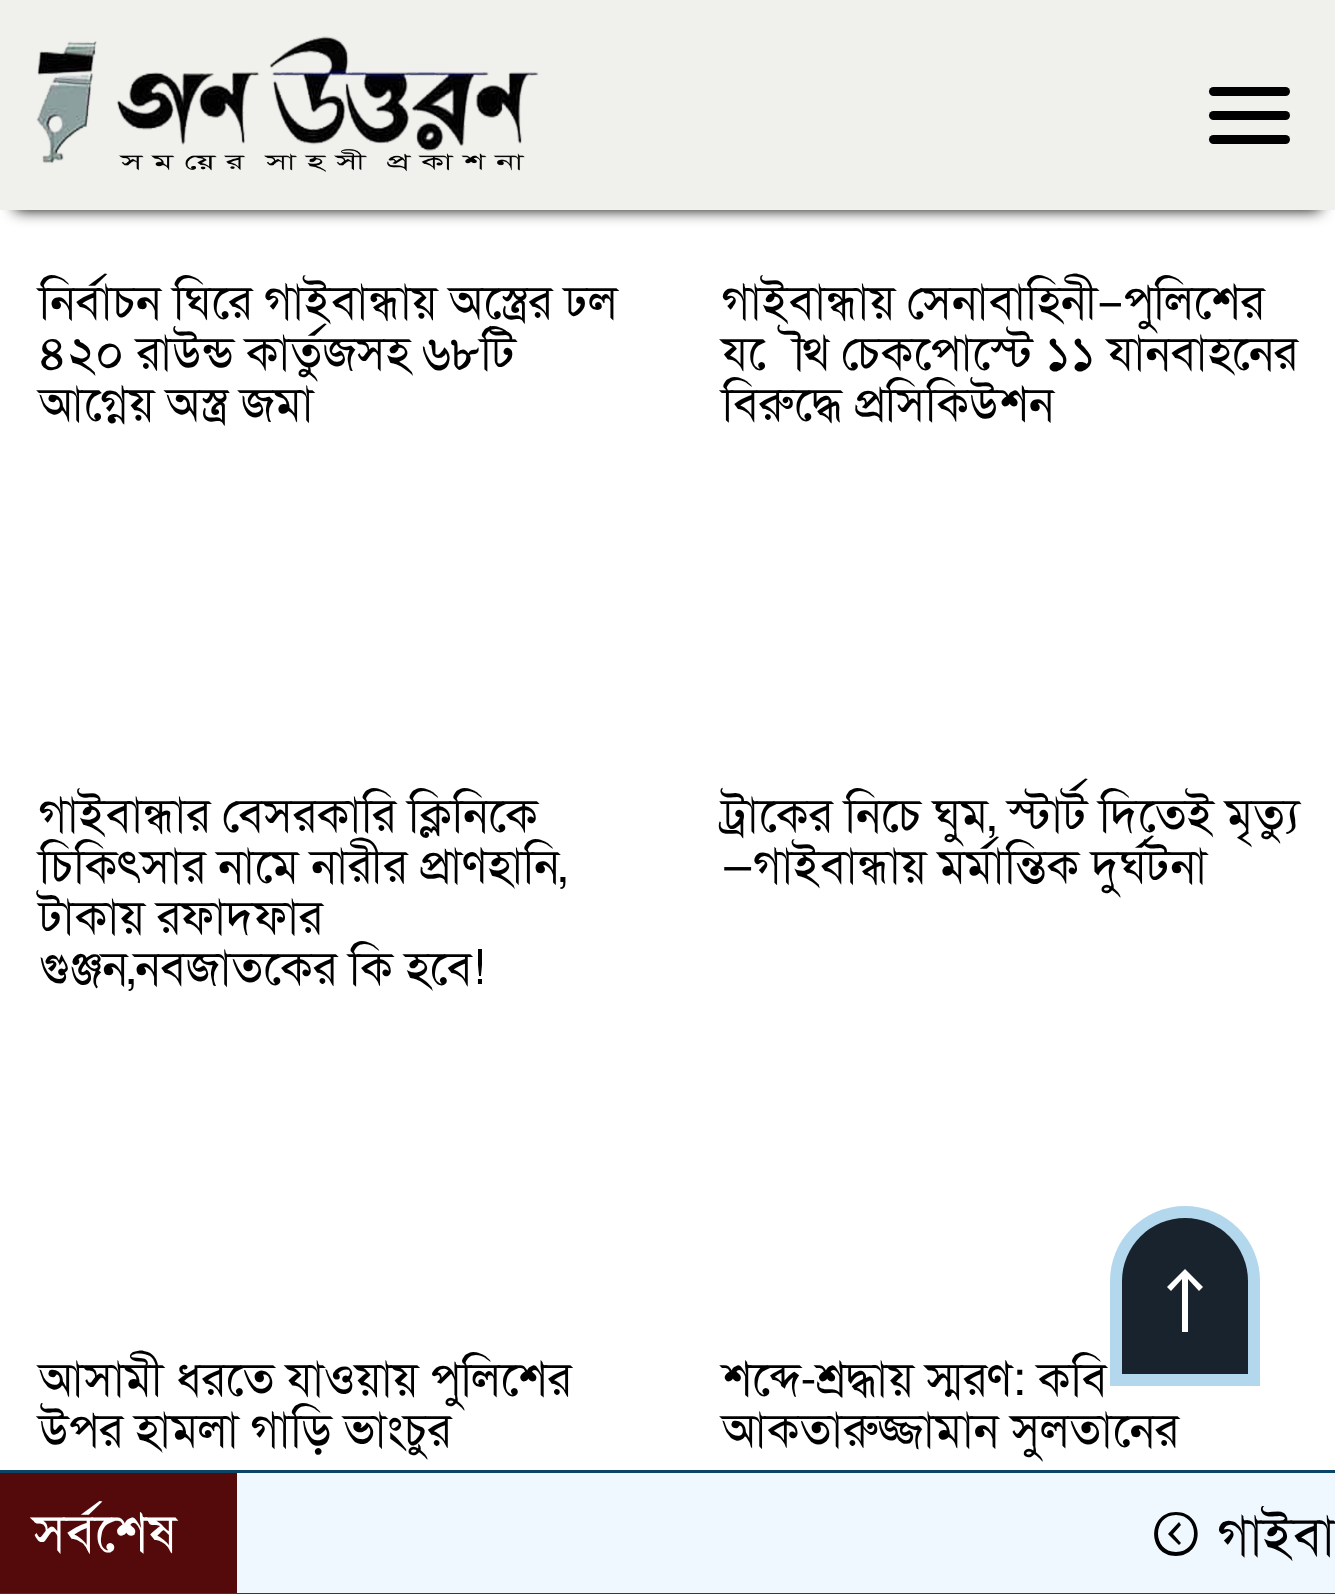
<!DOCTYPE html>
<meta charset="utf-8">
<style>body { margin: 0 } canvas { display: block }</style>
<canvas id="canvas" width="1335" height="1594"></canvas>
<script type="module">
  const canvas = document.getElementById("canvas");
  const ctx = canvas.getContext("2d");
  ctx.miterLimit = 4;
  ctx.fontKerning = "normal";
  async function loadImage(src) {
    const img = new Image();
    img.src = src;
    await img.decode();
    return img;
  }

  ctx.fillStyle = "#ffffff";
  ctx.fillRect(0, 0, 1335, 1594);
  ctx.fillStyle = "#000000";
  ctx.filter = "blur(7.5px)";
  ctx.beginPath();
  ctx.rect(15, 30, 1305, 180);
  ctx.fill();
  ctx.filter = "none";
  ctx.fillStyle = "#f0f0ed";
  ctx.fillRect(0, 0, 1335, 210);
  ctx.drawImage(await loadImage("img1.png"), 36, 36, 503, 136);
  ctx.fillStyle = "#000000";
  ctx.beginPath();
  ctx.roundRect(1209, 87, 81, 9, 4.5);
  ctx.fill();
  ctx.beginPath();
  ctx.roundRect(1209, 111, 81, 9, 4.5);
  ctx.fill();
  ctx.beginPath();
  ctx.roundRect(1209, 135, 81, 9, 4.5);
  ctx.fill();
  ctx.font = "48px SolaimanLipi";
  ctx.fillText("নির্বাচন ঘিরে গাইবান্ধায় অস্ত্রের ঢল", 39, 318);
  ctx.fillText("৪২০ রাউন্ড কার্তুজসহ ৬৮টি", 39, 369);
  ctx.fillText("আগ্নেয় অস্ত্র জমা", 39, 420);
  ctx.fillText("গাইবান্ধায় সেনাবাহিনী–পুলিশের", 722, 318);
  ctx.fillText("যৌথ চেকপোস্টে ১১ যানবাহনের", 722, 369);
  ctx.fillText("বিরুদ্ধে প্রসিকিউশন", 722, 420);
  ctx.fillText("গাইবান্ধার বেসরকারি ক্লিনিকে", 39, 831);
  ctx.fillText("চিকিৎসার নামে নারীর প্রাণহানি,", 39, 882);
  ctx.fillText("টাকায় রফাদফার", 39, 933);
  ctx.fillText("গুঞ্জন,নবজাতকের কি হবে!", 39, 984);
  ctx.fillText("ট্রাকের নিচে ঘুম, স্টার্ট দিতেই মৃত্যু", 722, 831);
  ctx.fillText("—গাইবান্ধায় মর্মান্তিক দুর্ঘটনা", 722, 882);
  ctx.fillText("আসামী ধরতে যাওয়ায় পুলিশের", 39, 1395);
  ctx.fillText("উপর হামলা গাড়ি ভাংচুর", 39, 1446);
  ctx.fillText("শব্দে-শ্রদ্ধায় স্মরণ: কবি", 722, 1395);
  ctx.fillText("আকতারুজ্জামান সুলতানের", 722, 1446);
  ctx.fillStyle = "#b3d7ec";
  ctx.beginPath();
  ctx.roundRect(1110, 1206, 150, 180, [75, 75, 0, 0]);
  ctx.fill();
  ctx.fillStyle = "#19232d";
  ctx.beginPath();
  ctx.roundRect(1122, 1218, 126, 156, [63, 63, 0, 0]);
  ctx.fill();
  ctx.fillStyle = "#ffffff";
  ctx.beginPath();
  ctx.moveTo(1185, 1269);
  ctx.lineTo(1167, 1287);
  ctx.lineTo(1171, 1291);
  ctx.lineTo(1182, 1279);
  ctx.lineTo(1182, 1332);
  ctx.lineTo(1188, 1332);
  ctx.lineTo(1188, 1279);
  ctx.lineTo(1199, 1291);
  ctx.lineTo(1203, 1287);
  ctx.closePath();
  ctx.fill();
  ctx.fillStyle = "#f0f8ff";
  ctx.fillRect(237, 1473, 1098, 120);
  ctx.fillStyle = "#0a4466";
  ctx.fillRect(0, 1470, 1335, 3);
  ctx.fillRect(0, 1593, 1335, 1);
  ctx.fillStyle = "#540a0a";
  ctx.fillRect(0, 1473, 237, 120);
  ctx.font = "54px SolaimanLipi";
  ctx.fillStyle = "#ffffff";
  ctx.fillText("সর্বশেষ", 33, 1551);
  ctx.fillStyle = "#000000";
  ctx.beginPath();
  ctx.moveTo(1176, 1512);
  ctx.bezierCurveTo(1147, 1512, 1147, 1556, 1176, 1556);
  ctx.bezierCurveTo(1205, 1556, 1205, 1512, 1176, 1512);
  ctx.closePath();
  ctx.moveTo(1176, 1515);
  ctx.bezierCurveTo(1200, 1515, 1200, 1552, 1176, 1552);
  ctx.bezierCurveTo(1152, 1552, 1152, 1515, 1176, 1515);
  ctx.closePath();
  ctx.moveTo(1179, 1522);
  ctx.lineTo(1168, 1534);
  ctx.lineTo(1179, 1545);
  ctx.lineTo(1181, 1543);
  ctx.lineTo(1173, 1534);
  ctx.lineTo(1181, 1525);
  ctx.closePath();
  ctx.fill();
  ctx.fillText("গাইবা", 1218, 1554);
</script>
